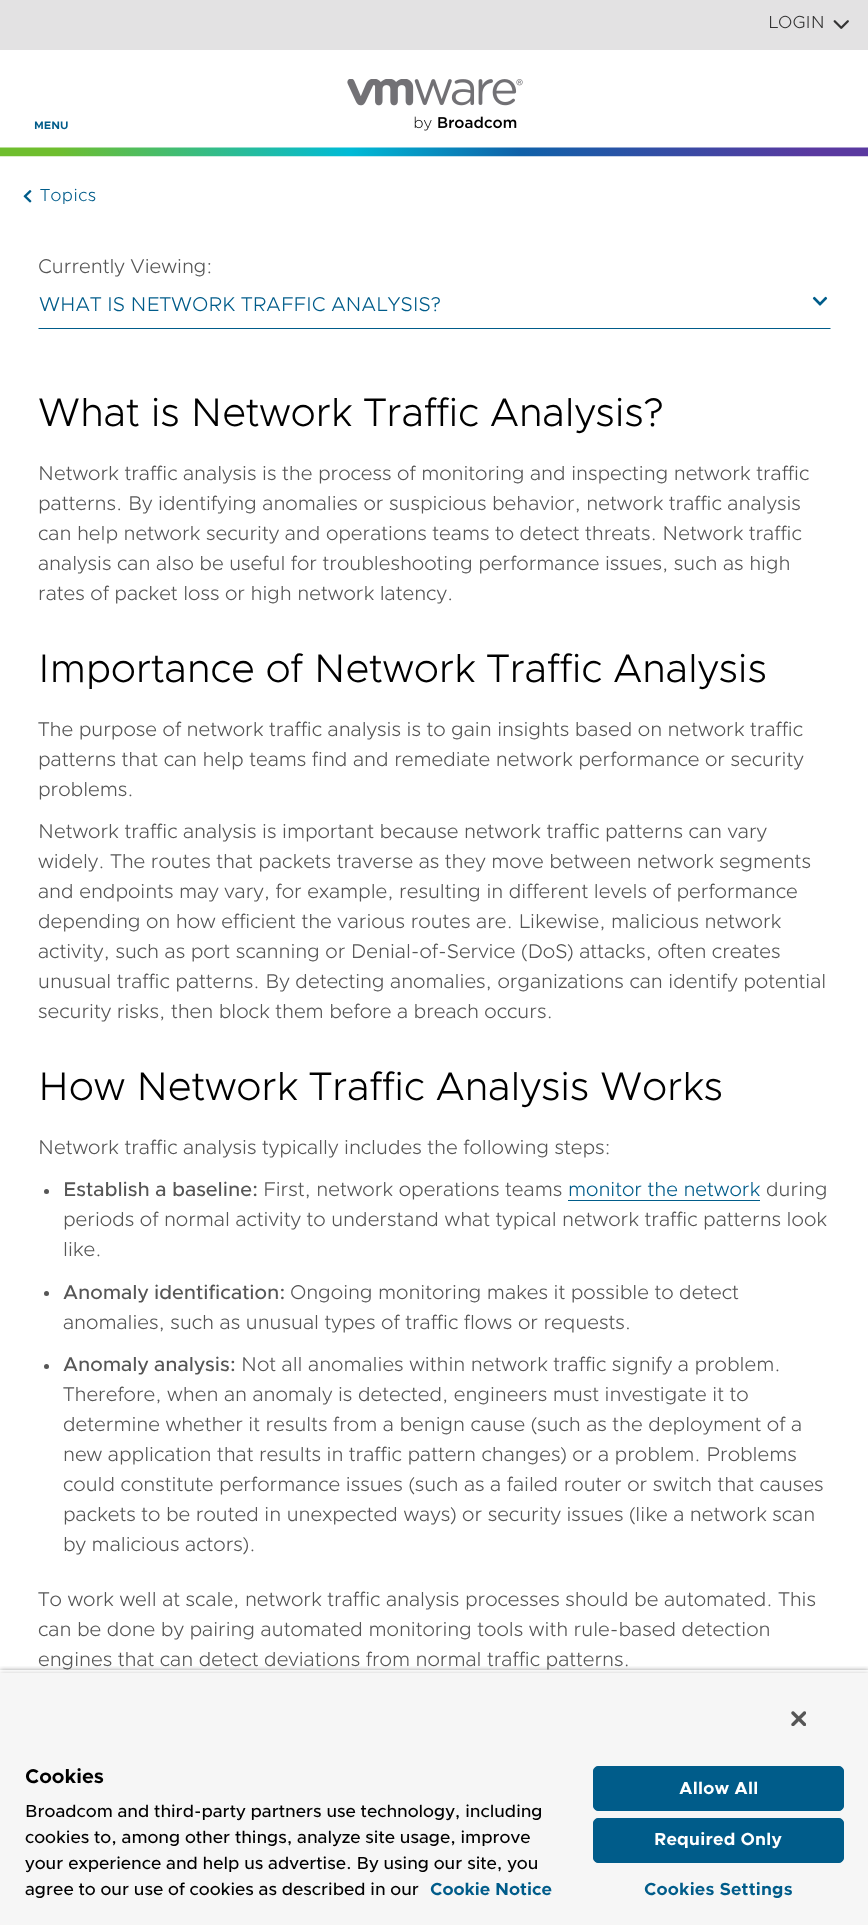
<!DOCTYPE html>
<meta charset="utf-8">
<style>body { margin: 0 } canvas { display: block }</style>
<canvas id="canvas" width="868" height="1925"></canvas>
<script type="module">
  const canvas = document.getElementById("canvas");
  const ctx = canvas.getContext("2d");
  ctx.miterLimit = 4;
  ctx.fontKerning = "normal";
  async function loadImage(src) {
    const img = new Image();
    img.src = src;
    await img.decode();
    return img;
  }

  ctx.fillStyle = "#ffffff";
  ctx.fillRect(0, 0, 868, 1925);
  ctx.drawImage(await loadImage("img1.png"), 0, 147, 868, 10);
  ctx.fillStyle = "#e3e2e3";
  ctx.fillRect(0, 0, 868, 50);
  ctx.font = "300 17.5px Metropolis";
  ctx.fillStyle = "#333333";
  ctx.fillText("LOGIN", 768, 28);
  ctx.drawImage(await loadImage("img2.png"), 833, 20, 16, 9);
  ctx.font = "bold 11px Metropolis";
  ctx.fillStyle = "#005c8a";
  ctx.fillText("MENU", 34, 129);
  ctx.drawImage(await loadImage("img3.png"), 347, 79, 176, 52);
  ctx.drawImage(await loadImage("img4.png"), 23, 190, 9, 13);
  ctx.letterSpacing = "0.5px";
  ctx.font = "300 17.5px Metropolis";
  ctx.fillText("Topics", 40, 201);
  ctx.letterSpacing = "0px";
  ctx.font = "300 20px Metropolis";
  ctx.fillStyle = "#565656";
  ctx.fillText("Currently Viewing:", 38, 273);
  ctx.fillStyle = "#005c8a";
  ctx.beginPath();
  ctx.moveTo(831, 329);
  ctx.lineTo(38, 329);
  ctx.lineTo(39, 328);
  ctx.lineTo(830, 328);
  ctx.closePath();
  ctx.fill();
  ctx.fillText("WHAT IS NETWORK TRAFFIC ANALYSIS?", 39, 311);
  ctx.drawImage(await loadImage("img5.png"), 812, 296, 16, 10);
  ctx.font = "300 40px Metropolis";
  ctx.fillStyle = "#000000";
  ctx.fillText("What is Network Traffic Analysis?", 38, 426);
  ctx.font = "300 20px Metropolis";
  ctx.fillStyle = "#565656";
  ctx.fillText("Network traffic analysis is the process of monitoring and inspecting network traffic", 38, 480);
  ctx.fillText("patterns. By identifying anomalies or suspicious behavior, network traffic analysis", 38, 510);
  ctx.fillText("can help network security and operations teams to detect threats. Network traffic", 38, 540);
  ctx.fillText("analysis can also be useful for troubleshooting performance issues, such as high", 38, 570);
  ctx.fillText("rates of packet loss or high network latency.", 38, 600);
  ctx.font = "300 40px Metropolis";
  ctx.fillStyle = "#000000";
  ctx.fillText("Importance of Network Traffic Analysis", 38, 682);
  ctx.font = "300 20px Metropolis";
  ctx.fillStyle = "#565656";
  ctx.fillText("The purpose of network traffic analysis is to gain insights based on network traffic", 38, 736);
  ctx.fillText("patterns that can help teams find and remediate network performance or security", 38, 766);
  ctx.fillText("problems.", 38, 796);
  ctx.fillText("Network traffic analysis is important because network traffic patterns can vary", 38, 838);
  ctx.fillText("widely. The routes that packets traverse as they move between network segments", 38, 868);
  ctx.fillText("and endpoints may vary, for example, resulting in different levels of performance", 38, 898);
  ctx.fillText("depending on how efficient the various routes are. Likewise, malicious network", 38, 928);
  ctx.fillText("activity, such as port scanning or Denial-of-Service (DoS) attacks, often creates", 38, 958);
  ctx.fillText("unusual traffic patterns. By detecting anomalies, organizations can identify potential", 38, 988);
  ctx.fillText("security risks, then block them before a breach occurs.", 38, 1018);
  ctx.font = "300 40px Metropolis";
  ctx.fillStyle = "#000000";
  ctx.fillText("How Network Traffic Analysis Works", 38, 1100);
  ctx.font = "300 20px Metropolis";
  ctx.fillStyle = "#565656";
  ctx.fillText("Network traffic analysis typically includes the following steps:", 38, 1154);
  ctx.beginPath();
  ctx.arc(46.5, 1191.5, 2.5, 0, Math.PI * 2);
  ctx.fill();
  ctx.font = "500 20px Metropolis";
  ctx.fillText("Establish a baseline:", 63, 1196);
  ctx.font = "300 20px Metropolis";
  ctx.fillText("First, network operations teams", 263, 1196);
  ctx.fillStyle = "#005c8a";
  ctx.fillText("monitor the network", 568, 1196);
  ctx.fillRect(568, 1200, 192, 1);
  ctx.fillStyle = "#565656";
  ctx.fillText("during", 766, 1196);
  ctx.fillText("periods of normal activity to understand what typical network traffic patterns look", 63, 1226);
  ctx.fillText("like.", 63, 1256);
  ctx.beginPath();
  ctx.arc(46.5, 1293.5, 2.5, 0, Math.PI * 2);
  ctx.fill();
  ctx.font = "500 20px Metropolis";
  ctx.fillText("Anomaly identification:", 63, 1299);
  ctx.font = "300 20px Metropolis";
  ctx.fillText("Ongoing monitoring makes it possible to detect", 290, 1299);
  ctx.fillText("anomalies, such as unusual types of traffic flows or requests.", 63, 1329);
  ctx.beginPath();
  ctx.arc(46.5, 1366.5, 2.5, 0, Math.PI * 2);
  ctx.fill();
  ctx.font = "500 20px Metropolis";
  ctx.fillText("Anomaly analysis:", 63, 1371);
  ctx.font = "300 20px Metropolis";
  ctx.fillText("Not all anomalies within network traffic signify a problem.", 241, 1371);
  ctx.fillText("Therefore, when an anomaly is detected, engineers must investigate it to", 63, 1401);
  ctx.fillText("determine whether it results from a benign cause (such as the deployment of a", 63, 1431);
  ctx.fillText("new application that results in traffic pattern changes) or a problem. Problems", 63, 1461);
  ctx.fillText("could constitute performance issues (such as a failed router or switch that causes", 63, 1491);
  ctx.fillText("packets to be routed in unexpected ways) or security issues (like a network scan", 63, 1521);
  ctx.fillText("by malicious actors).", 63, 1551);
  ctx.fillText("To work well at scale, network traffic analysis processes should be automated. This", 38, 1606);
  ctx.fillText("can be done by pairing automated monitoring tools with rule-based detection", 38, 1636);
  ctx.fillText("engines that can detect deviations from normal traffic patterns.", 38, 1666);
  ctx.save();
  ctx.beginPath();
  ctx.rect(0, 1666, 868, 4);
  ctx.clip();
  ctx.fillStyle = "rgba(0, 0, 0, 0.35)";
  ctx.filter = "blur(2.5px)";
  ctx.beginPath();
  ctx.rect(0, 1670, 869, 255);
  ctx.fill();
  ctx.filter = "none";
  ctx.restore();
  ctx.fillStyle = "rgba(0, 0, 0, 0.2)";
  ctx.filter = "blur(2.5px)";
  ctx.beginPath();
  ctx.rect(0, 1673, 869, 252);
  ctx.fill();
  ctx.filter = "none";
  ctx.fillStyle = "#f6f6f6";
  ctx.fillRect(0, 1673, 868, 252);
  ctx.drawImage(await loadImage("img6.png"), 791, 1711, 15, 15);
  ctx.font = "bold 20px Metropolis";
  ctx.fillStyle = "#000000";
  ctx.fillText("Cookies", 25, 1783);
  ctx.font = "500 17.5px Metropolis";
  ctx.fillText("Broadcom and third-party partners use technology, including", 25, 1817);
  ctx.fillText("cookies to, among other things, analyze site usage, improve", 25, 1843);
  ctx.fillText("your experience and help us advertise. By using our site, you", 25, 1869);
  ctx.fillText("agree to our use of cookies as described in our", 25, 1895);
  ctx.font = "bold 17.5px Metropolis";
  ctx.fillStyle = "#005c8a";
  ctx.fillText("Cookie Notice", 430, 1895);
  ctx.beginPath();
  ctx.roundRect(593.5, 1766.5, 250, 44, 4.5);
  ctx.fill();
  ctx.strokeStyle = "#005c8a";
  ctx.stroke();
  ctx.letterSpacing = "0.2px";
  ctx.fillStyle = "#ffffff";
  ctx.fillText("Allow All", 679, 1794);
  ctx.fillStyle = "#005c8a";
  ctx.beginPath();
  ctx.roundRect(593.5, 1818.5, 250, 44, 4.5);
  ctx.fill();
  ctx.stroke();
  ctx.fillStyle = "#ffffff";
  ctx.fillText("Required Only", 654, 1845);
  ctx.fillStyle = "#005c8a";
  ctx.fillText("Cookies Settings", 644, 1895);
</script>
